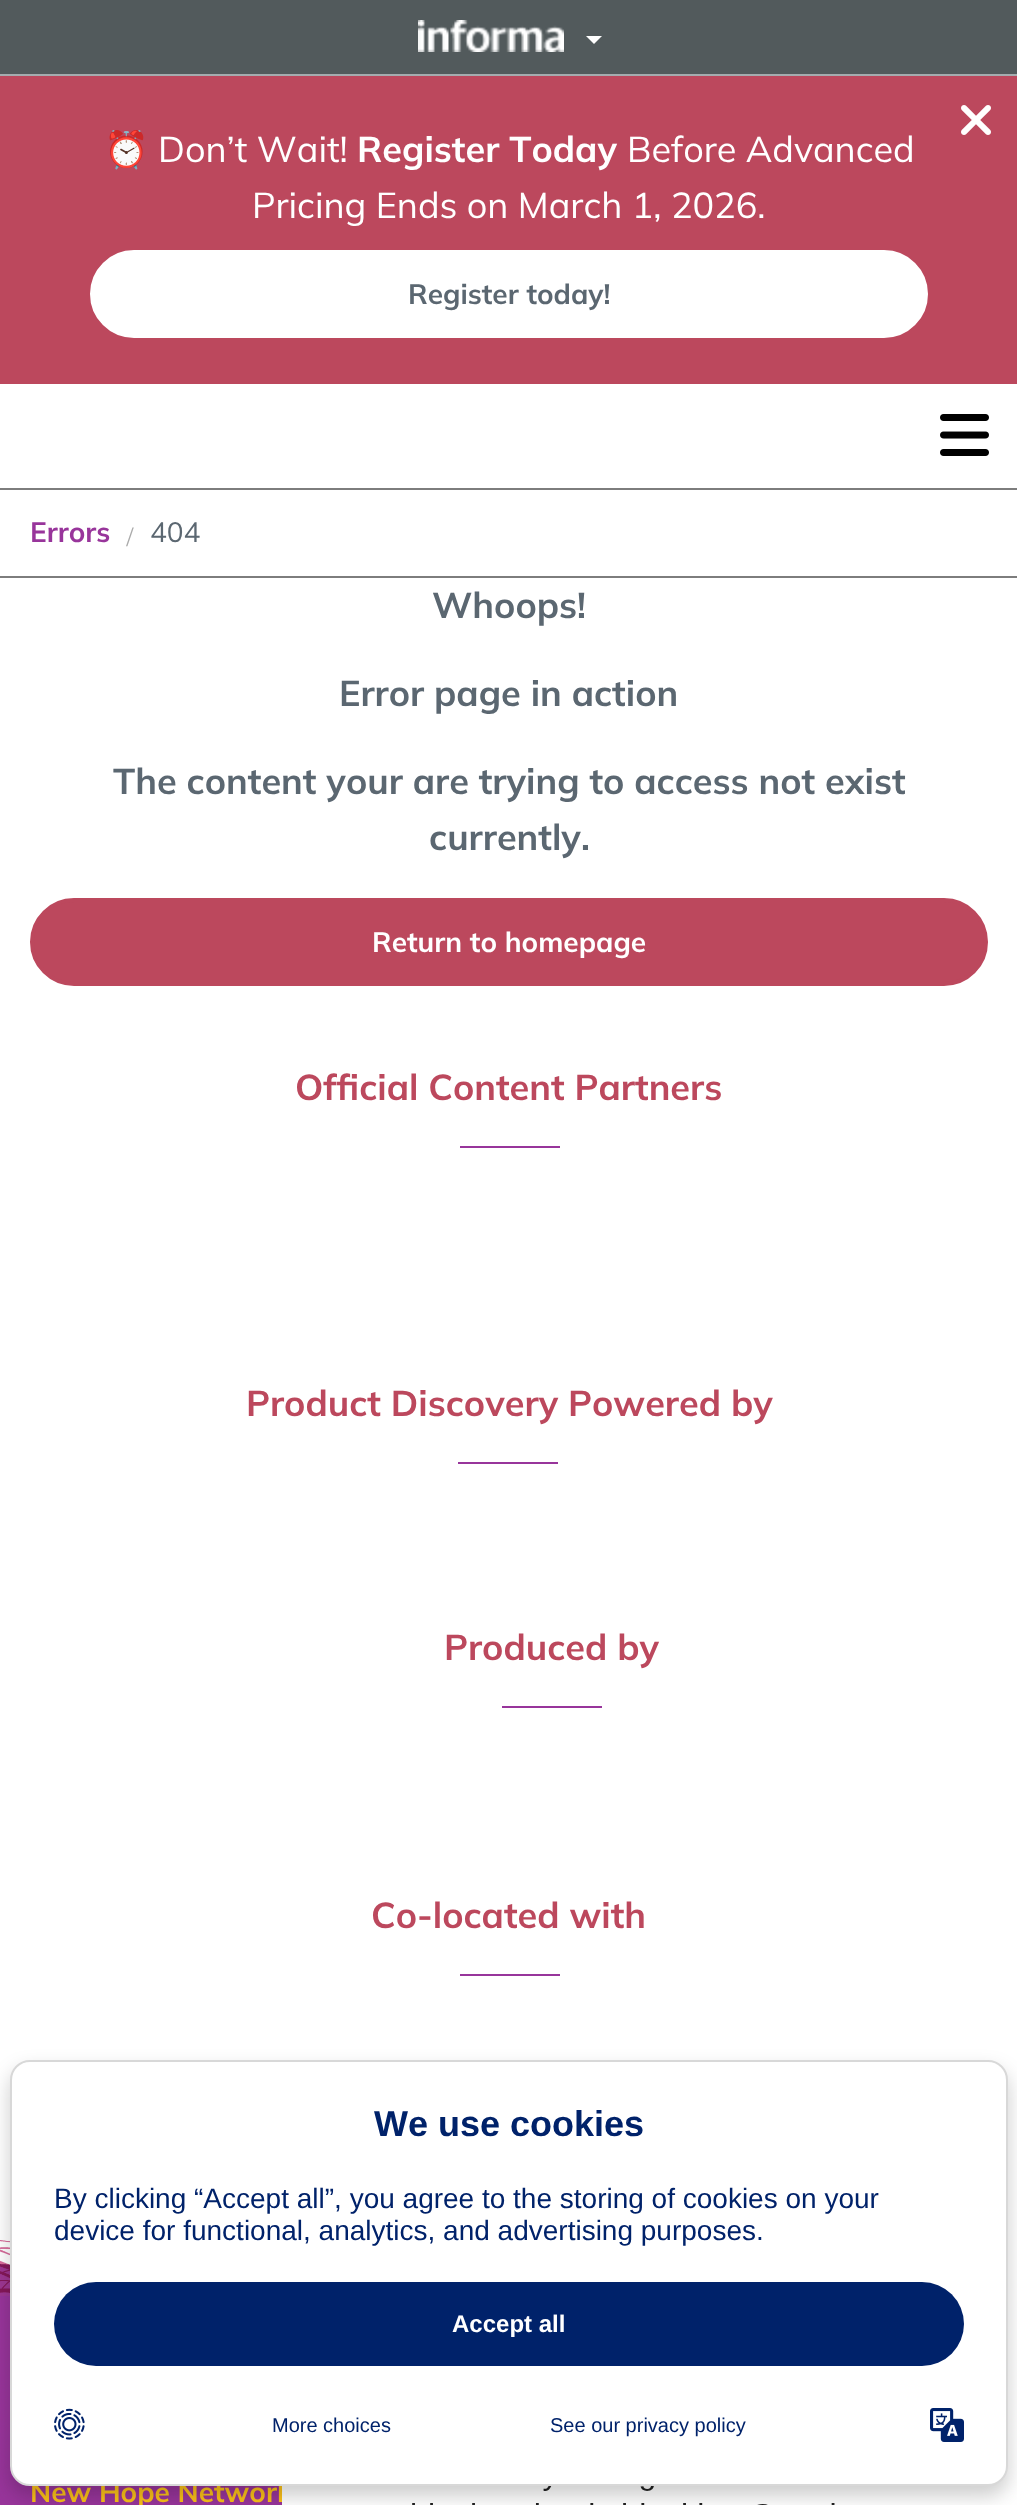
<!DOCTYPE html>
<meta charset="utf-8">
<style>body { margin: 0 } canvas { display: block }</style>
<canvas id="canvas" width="1017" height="2505"></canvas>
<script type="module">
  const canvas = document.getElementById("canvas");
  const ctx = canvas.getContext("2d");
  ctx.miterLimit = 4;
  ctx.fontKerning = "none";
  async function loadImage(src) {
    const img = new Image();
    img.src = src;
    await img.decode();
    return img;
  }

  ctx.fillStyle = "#ffffff";
  ctx.fillRect(0, 0, 1017, 2505);
  ctx.fillStyle = "#525a5c";
  ctx.fillRect(0, 0, 1017, 74);
  ctx.fillStyle = "#a5acaf";
  ctx.fillRect(0, 74, 1017, 2);
  ctx.drawImage(await loadImage("img1.png"), 418, 20, 146, 32);
  ctx.fillStyle = "#ffffff";
  ctx.beginPath();
  ctx.moveTo(586, 36);
  ctx.lineTo(602, 36);
  ctx.lineTo(594, 44);
  ctx.closePath();
  ctx.fill();
  ctx.fillStyle = "#7d7d7d";
  ctx.fillRect(0, 488, 1017, 2);
  ctx.fillStyle = "#bc485d";
  ctx.fillRect(0, 76, 1017, 308);
  ctx.drawImage(await loadImage("img2.png"), 961, 105, 30, 30);
  ctx.font = "36px Noto Color Emoji";
  ctx.fillStyle = "#ffffff";
  ctx.fillText("⏰", 104, 162);
  ctx.font = "36px Mulish";
  ctx.fillText("Don’t Wait!", 158, 162);
  ctx.font = "bold 36px Mulish";
  ctx.fillText("Register Today", 357, 162);
  ctx.font = "36px Mulish";
  ctx.fillText("Before Advanced", 627, 162);
  ctx.fillText("Pricing Ends on March 1, 2026.", 252, 218);
  ctx.beginPath();
  ctx.roundRect(92, 252, 834, 84, 42);
  ctx.fill();
  ctx.strokeStyle = "#ffffff";
  ctx.lineWidth = 4;
  ctx.stroke();
  ctx.font = "bold 28px Mulish";
  ctx.fillStyle = "#5b6771";
  ctx.fillText("Register today!", 408, 304);
  ctx.drawImage(await loadImage("img3.png"), 940, 414, 49, 42);
  ctx.fillStyle = "#7d7d7d";
  ctx.fillRect(0, 576, 1017, 2);
  ctx.fillStyle = "#98359b";
  ctx.fillText("Errors", 30, 542);
  ctx.font = "28px Liberation Serif";
  ctx.fillStyle = "#aaaaaa";
  ctx.fillText("/", 126, 546);
  ctx.font = "28px Mulish";
  ctx.fillStyle = "#5b6771";
  ctx.fillText("404", 150, 542);
  ctx.font = "bold 36px Mulish";
  ctx.fillText("Whoops!", 432, 618);
  ctx.fillText("Error page in action", 339, 706);
  ctx.fillText("The content your are trying to access not exist", 113, 794);
  ctx.fillText("currently.", 429, 850);
  ctx.fillStyle = "#bc485d";
  ctx.beginPath();
  ctx.roundRect(32, 900, 954, 84, 42);
  ctx.fill();
  ctx.strokeStyle = "#bc485d";
  ctx.stroke();
  ctx.font = "bold 28px Mulish";
  ctx.fillStyle = "#ffffff";
  ctx.fillText("Return to homepage", 372, 952);
  ctx.drawImage(await loadImage("img4.png"), 0, 2240, 10, 56);
  ctx.font = "bold 36px Mulish";
  ctx.fillStyle = "#bc485d";
  ctx.fillText("Official Content Partners", 295, 1100);
  ctx.fillStyle = "#98359b";
  ctx.fillRect(460, 1146, 100, 2);
  ctx.fillStyle = "#bc485d";
  ctx.fillText("Product Discovery Powered by", 246, 1416);
  ctx.fillStyle = "#98359b";
  ctx.fillRect(458, 1462, 100, 2);
  ctx.fillStyle = "#bc485d";
  ctx.fillText("Produced by", 444, 1660);
  ctx.fillStyle = "#98359b";
  ctx.fillRect(502, 1706, 100, 2);
  ctx.fillStyle = "#bc485d";
  ctx.fillText("Co-located with", 371, 1928);
  ctx.fillStyle = "#98359b";
  ctx.fillRect(460, 1974, 100, 2);
  ctx.fillRect(0, 2296, 282, 209);
  ctx.font = "bold 28px Mulish";
  ctx.fillStyle = "#fbc119";
  ctx.fillText("New Hope Network", 30, 2502);
  ctx.drawImage(await loadImage("img5.png"), 282, 2127, 735, 378);
  ctx.fillStyle = "rgba(0, 0, 0, 0.2)";
  ctx.filter = "blur(10px)";
  ctx.beginPath();
  ctx.roundRect(10, 2070, 998, 426, 20);
  ctx.fill();
  ctx.filter = "none";
  ctx.fillStyle = "#ffffff";
  ctx.beginPath();
  ctx.roundRect(11, 2061, 996, 424, 19);
  ctx.fill();
  ctx.strokeStyle = "#d8d8d8";
  ctx.lineWidth = 2;
  ctx.stroke();
  ctx.font = "bold 36px Liberation Sans";
  ctx.fillStyle = "#00226a";
  ctx.fillText("We use cookies", 374, 2136);
  ctx.font = "28px Liberation Sans";
  ctx.fillText("By clicking “Accept all”, you agree to the storing of cookies on your", 54, 2208);
  ctx.fillText("device for functional, analytics, and advertising purposes.", 54, 2240);
  ctx.beginPath();
  ctx.roundRect(54, 2282, 910, 84, 42);
  ctx.fill();
  ctx.font = "bold 24px Liberation Sans";
  ctx.fillStyle = "#ffffff";
  ctx.fillText("Accept all", 452, 2332);
  ctx.drawImage(await loadImage("img6.png"), 54, 2408, 31, 32);
  ctx.font = "20px Liberation Sans";
  ctx.fillStyle = "#00226a";
  ctx.fillText("More choices", 272, 2432);
  ctx.fillText("See our privacy policy", 550, 2432);
  ctx.drawImage(await loadImage("img7.png"), 930, 2408, 34, 34);
</script>
